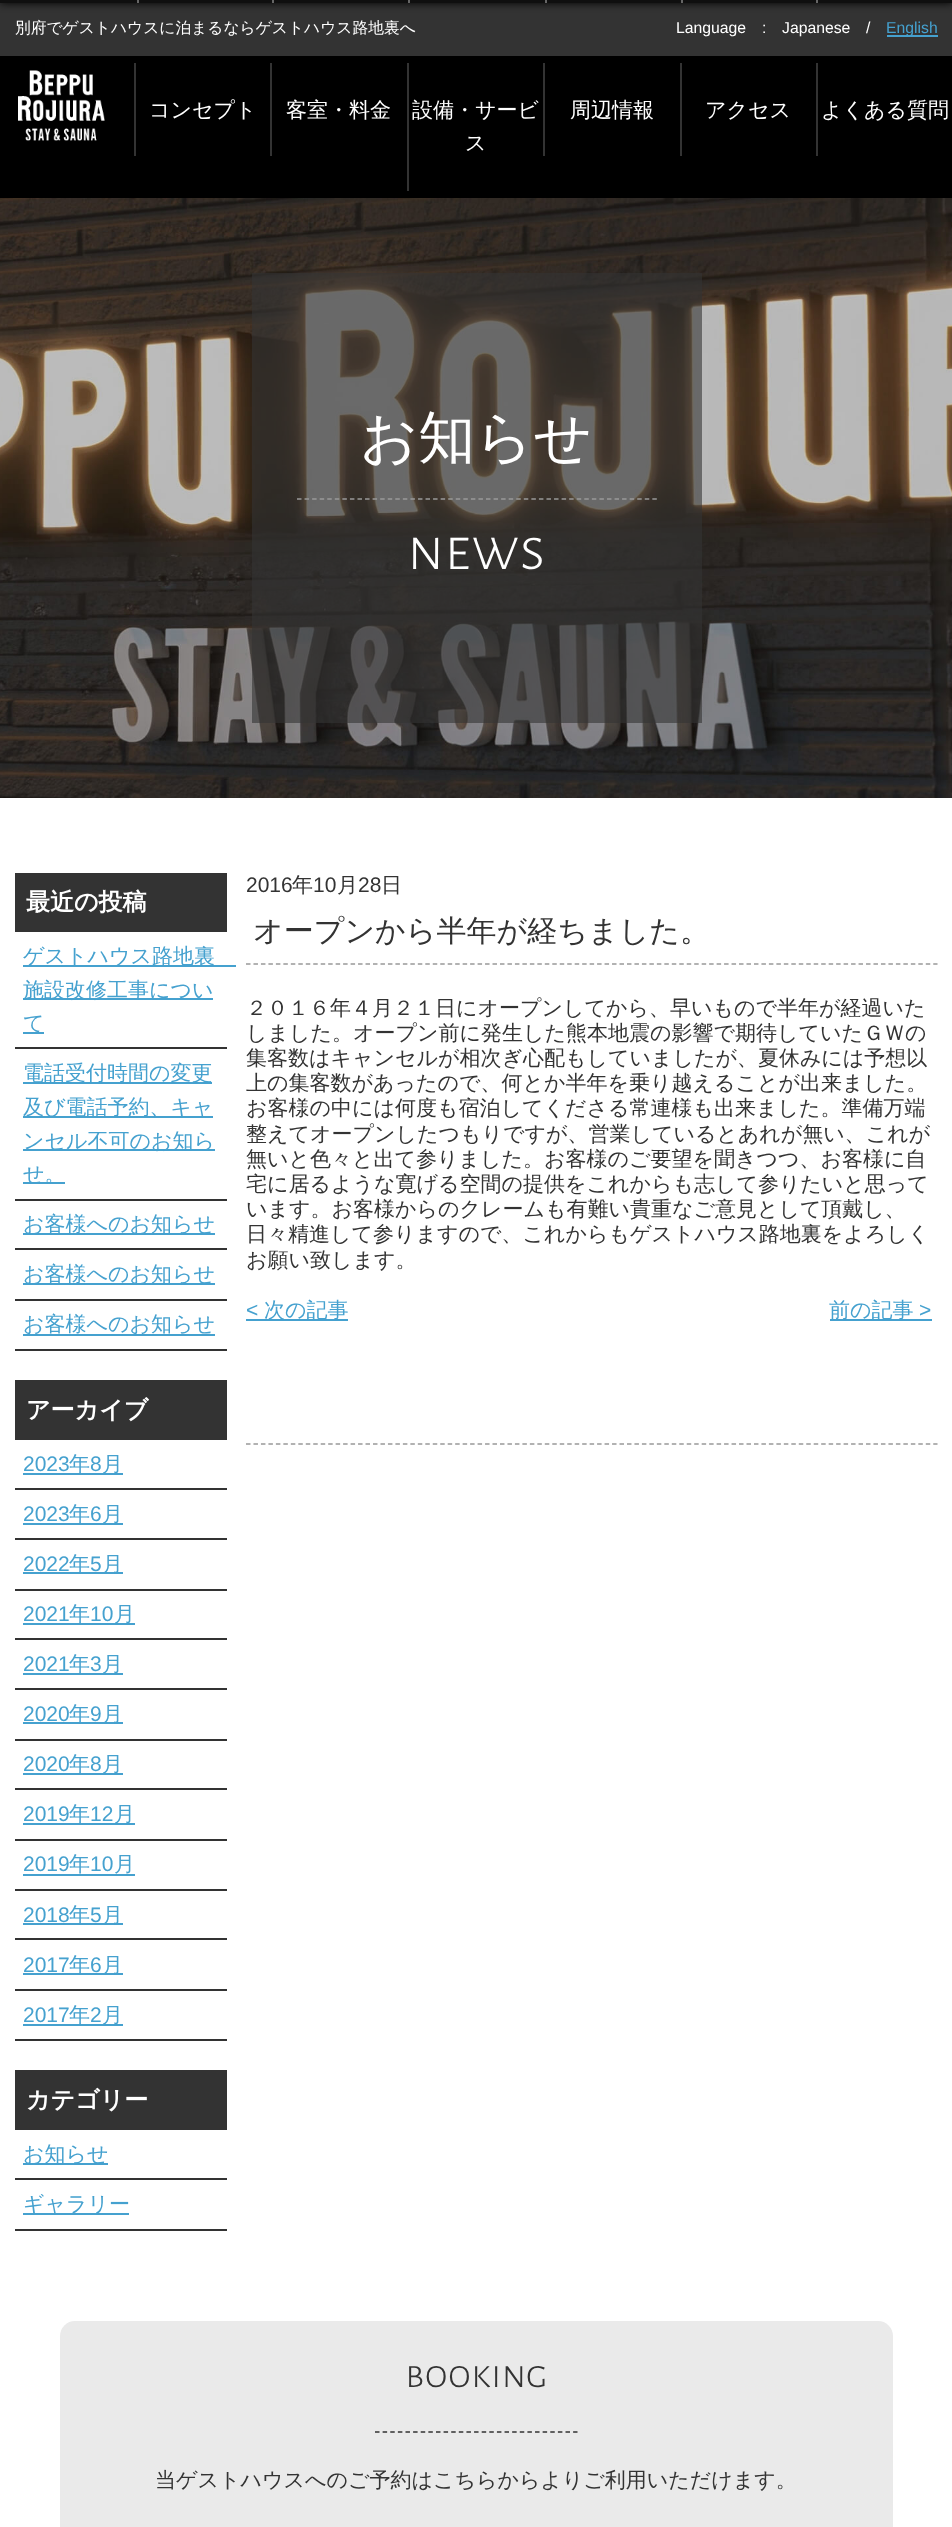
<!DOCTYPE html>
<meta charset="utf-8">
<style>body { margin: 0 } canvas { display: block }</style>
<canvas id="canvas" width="952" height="2527"></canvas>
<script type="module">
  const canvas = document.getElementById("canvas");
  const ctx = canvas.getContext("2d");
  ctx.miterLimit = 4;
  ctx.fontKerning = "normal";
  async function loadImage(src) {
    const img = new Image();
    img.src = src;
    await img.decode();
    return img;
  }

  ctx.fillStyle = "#ffffff";
  ctx.fillRect(0, 0, 952, 2527);
  ctx.fillStyle = "#333333";
  ctx.fillRect(0, 3, 952, 53);
  ctx.fillStyle = "#000000";
  ctx.filter = "blur(4px)";
  ctx.beginPath();
  ctx.rect(0, -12, 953, 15);
  ctx.fill();
  ctx.filter = "none";
  ctx.fillStyle = "#0f0f0f";
  ctx.fillRect(0, 0, 952, 3);
  ctx.fillStyle = "#666666";
  ctx.fillRect(137, 0, 2, 3);
  ctx.fillRect(272, 0, 2, 3);
  ctx.fillRect(408, 0, 2, 3);
  ctx.fillRect(545, 0, 2, 3);
  ctx.fillRect(681, 0, 2, 3);
  ctx.fillRect(816, 0, 2, 3);
  ctx.font = "500 15.75px WenQuanYi Zen Hei";
  ctx.fillStyle = "#ffffff";
  ctx.fillText("別府でゲストハウスに泊まるならゲストハウス路地裏へ", 15, 33);
  ctx.font = "15.75px Liberation Sans";
  ctx.fillText("Language", 676, 33);
  ctx.fillText(":", 762, 33);
  ctx.fillText("Japanese", 782, 33);
  ctx.fillText("/", 866, 33);
  ctx.fillStyle = "#45a1cf";
  ctx.fillRect(887, 35, 51, 2);
  ctx.fillText("English", 886, 33);
  ctx.fillStyle = "#000000";
  ctx.fillRect(0, 56, 952, 142);
  ctx.drawImage(await loadImage("img1.png"), 18, 70, 87, 71);
  ctx.fillStyle = "#333333";
  ctx.fillRect(134, 63, 2, 93);
  ctx.font = "500 21px WenQuanYi Zen Hei";
  ctx.fillStyle = "#ffffff";
  ctx.fillText("コンセプト", 149, 117);
  ctx.fillStyle = "#333333";
  ctx.fillRect(270, 63, 2, 93);
  ctx.fillStyle = "#ffffff";
  ctx.fillText("客室・料金", 286, 117);
  ctx.fillStyle = "#333333";
  ctx.fillRect(407, 63, 2, 128);
  ctx.fillStyle = "#ffffff";
  ctx.fillText("設備・サービ", 412, 117);
  ctx.fillText("ス", 465, 150);
  ctx.fillStyle = "#333333";
  ctx.fillRect(543, 63, 2, 93);
  ctx.fillStyle = "#ffffff";
  ctx.fillText("周辺情報", 570, 117);
  ctx.fillStyle = "#333333";
  ctx.fillRect(680, 63, 2, 93);
  ctx.fillStyle = "#ffffff";
  ctx.fillText("アクセス", 705, 117);
  ctx.fillStyle = "#333333";
  ctx.fillRect(816, 63, 2, 93);
  ctx.fillStyle = "#ffffff";
  ctx.fillText("よくある質問", 821, 117);
  ctx.drawImage(await loadImage("img2.png"), 0, 198, 952, 600);
  ctx.fillStyle = "rgba(52, 52, 52, 0.6)";
  ctx.fillRect(252, 273, 450, 450);
  ctx.font = "500 57px WenQuanYi Zen Hei";
  ctx.fillStyle = "#ffffff";
  ctx.fillText("お知らせ", 360, 457);
  ctx.beginPath();
  ctx.moveTo(297, 499);
  ctx.lineTo(657, 499);
  ctx.strokeStyle = "#999999";
  ctx.lineWidth = 1.5;
  ctx.setLineDash([4.5, 3.06]);
  ctx.stroke();
  ctx.font = "300 63px Alegreya Sans SC";
  ctx.fillText("news", 407, 569);
  ctx.fillStyle = "#333333";
  ctx.fillRect(15, 873, 212, 59);
  ctx.font = "bold 24px WenQuanYi Zen Hei";
  ctx.fillStyle = "#ffffff";
  ctx.fillText("最近の投稿", 26, 910);
  ctx.fillStyle = "#333333";
  ctx.fillRect(15, 1047, 212, 2);
  ctx.fillStyle = "#45a1cf";
  ctx.fillRect(23, 965, 213, 2);
  ctx.font = "500 21px WenQuanYi Zen Hei";
  ctx.fillText("ゲストハウス路地裏", 23, 963);
  ctx.fillRect(23, 998, 190, 2);
  ctx.fillText("施設改修工事につい", 23, 997);
  ctx.fillRect(23, 1032, 21, 2);
  ctx.fillText("て", 23, 1030);
  ctx.fillStyle = "#333333";
  ctx.fillRect(15, 1199, 212, 2);
  ctx.fillStyle = "#45a1cf";
  ctx.fillRect(23, 1082, 189, 2);
  ctx.fillText("電話受付時間の変更", 23, 1080);
  ctx.fillRect(23, 1116, 190, 2);
  ctx.fillText("及び電話予約、キャ", 23, 1114);
  ctx.fillRect(23, 1149, 192, 2);
  ctx.fillText("ンセル不可のお知ら", 23, 1148);
  ctx.fillRect(23, 1182, 42, 2);
  ctx.fillText("せ。", 23, 1181);
  ctx.fillStyle = "#333333";
  ctx.fillRect(15, 1248, 212, 2);
  ctx.fillStyle = "#45a1cf";
  ctx.fillRect(23, 1233, 192, 2);
  ctx.fillText("お客様へのお知らせ", 23, 1231);
  ctx.fillStyle = "#333333";
  ctx.fillRect(15, 1299, 212, 2);
  ctx.fillStyle = "#45a1cf";
  ctx.fillRect(23, 1283, 192, 2);
  ctx.fillText("お客様へのお知らせ", 23, 1281);
  ctx.fillStyle = "#333333";
  ctx.fillRect(15, 1349, 212, 2);
  ctx.fillStyle = "#45a1cf";
  ctx.fillRect(23, 1334, 192, 2);
  ctx.fillText("お客様へのお知らせ", 23, 1331);
  ctx.fillStyle = "#333333";
  ctx.fillRect(15, 1380, 212, 60);
  ctx.font = "bold 24px WenQuanYi Zen Hei";
  ctx.fillStyle = "#ffffff";
  ctx.fillText("アーカイブ", 26, 1418);
  ctx.fillStyle = "#333333";
  ctx.fillRect(15, 1488, 212, 2);
  ctx.font = "21px Liberation Sans";
  ctx.fillStyle = "#45a1cf";
  ctx.fillText("2023", 23, 1471);
  ctx.fillRect(23, 1473, 100, 2);
  ctx.font = "500 21px WenQuanYi Zen Hei";
  ctx.fillText("年", 69, 1471);
  ctx.font = "21px Liberation Sans";
  ctx.fillText("8", 90, 1471);
  ctx.font = "500 21px WenQuanYi Zen Hei";
  ctx.fillText("月", 102, 1471);
  ctx.fillStyle = "#333333";
  ctx.fillRect(15, 1538, 212, 2);
  ctx.font = "21px Liberation Sans";
  ctx.fillStyle = "#45a1cf";
  ctx.fillText("2023", 23, 1521);
  ctx.fillRect(23, 1523, 100, 2);
  ctx.font = "500 21px WenQuanYi Zen Hei";
  ctx.fillText("年", 69, 1521);
  ctx.font = "21px Liberation Sans";
  ctx.fillText("6", 90, 1521);
  ctx.font = "500 21px WenQuanYi Zen Hei";
  ctx.fillText("月", 102, 1521);
  ctx.fillStyle = "#333333";
  ctx.fillRect(15, 1589, 212, 2);
  ctx.font = "21px Liberation Sans";
  ctx.fillStyle = "#45a1cf";
  ctx.fillText("2022", 23, 1571);
  ctx.fillRect(23, 1572, 100, 2);
  ctx.font = "500 21px WenQuanYi Zen Hei";
  ctx.fillText("年", 69, 1571);
  ctx.font = "21px Liberation Sans";
  ctx.fillText("5", 90, 1571);
  ctx.font = "500 21px WenQuanYi Zen Hei";
  ctx.fillText("月", 102, 1571);
  ctx.fillStyle = "#333333";
  ctx.fillRect(15, 1638, 212, 2);
  ctx.font = "21px Liberation Sans";
  ctx.fillStyle = "#45a1cf";
  ctx.fillText("2021", 23, 1621);
  ctx.fillRect(23, 1623, 112, 2);
  ctx.font = "500 21px WenQuanYi Zen Hei";
  ctx.fillText("年", 69, 1621);
  ctx.font = "21px Liberation Sans";
  ctx.fillText("10", 90, 1621);
  ctx.font = "500 21px WenQuanYi Zen Hei";
  ctx.fillText("月", 114, 1621);
  ctx.fillStyle = "#333333";
  ctx.fillRect(15, 1688, 212, 2);
  ctx.font = "21px Liberation Sans";
  ctx.fillStyle = "#45a1cf";
  ctx.fillText("2021", 23, 1671);
  ctx.fillRect(23, 1673, 100, 2);
  ctx.font = "500 21px WenQuanYi Zen Hei";
  ctx.fillText("年", 69, 1671);
  ctx.font = "21px Liberation Sans";
  ctx.fillText("3", 90, 1671);
  ctx.font = "500 21px WenQuanYi Zen Hei";
  ctx.fillText("月", 102, 1671);
  ctx.fillStyle = "#333333";
  ctx.fillRect(15, 1739, 212, 2);
  ctx.font = "21px Liberation Sans";
  ctx.fillStyle = "#45a1cf";
  ctx.fillText("2020", 23, 1721);
  ctx.fillRect(23, 1722, 100, 2);
  ctx.font = "500 21px WenQuanYi Zen Hei";
  ctx.fillText("年", 69, 1721);
  ctx.font = "21px Liberation Sans";
  ctx.fillText("9", 90, 1721);
  ctx.font = "500 21px WenQuanYi Zen Hei";
  ctx.fillText("月", 102, 1721);
  ctx.fillStyle = "#333333";
  ctx.fillRect(15, 1788, 212, 2);
  ctx.font = "21px Liberation Sans";
  ctx.fillStyle = "#45a1cf";
  ctx.fillText("2020", 23, 1771);
  ctx.fillRect(23, 1773, 100, 2);
  ctx.font = "500 21px WenQuanYi Zen Hei";
  ctx.fillText("年", 69, 1771);
  ctx.font = "21px Liberation Sans";
  ctx.fillText("8", 90, 1771);
  ctx.font = "500 21px WenQuanYi Zen Hei";
  ctx.fillText("月", 102, 1771);
  ctx.fillStyle = "#333333";
  ctx.fillRect(15, 1839, 212, 2);
  ctx.font = "21px Liberation Sans";
  ctx.fillStyle = "#45a1cf";
  ctx.fillText("2019", 23, 1821);
  ctx.fillRect(23, 1823, 112, 2);
  ctx.font = "500 21px WenQuanYi Zen Hei";
  ctx.fillText("年", 69, 1821);
  ctx.font = "21px Liberation Sans";
  ctx.fillText("12", 90, 1821);
  ctx.font = "500 21px WenQuanYi Zen Hei";
  ctx.fillText("月", 114, 1821);
  ctx.fillStyle = "#333333";
  ctx.fillRect(15, 1889, 212, 2);
  ctx.font = "21px Liberation Sans";
  ctx.fillStyle = "#45a1cf";
  ctx.fillText("2019", 23, 1871);
  ctx.fillRect(23, 1874, 112, 2);
  ctx.font = "500 21px WenQuanYi Zen Hei";
  ctx.fillText("年", 69, 1871);
  ctx.font = "21px Liberation Sans";
  ctx.fillText("10", 90, 1871);
  ctx.font = "500 21px WenQuanYi Zen Hei";
  ctx.fillText("月", 114, 1871);
  ctx.fillStyle = "#333333";
  ctx.fillRect(15, 1938, 212, 2);
  ctx.font = "21px Liberation Sans";
  ctx.fillStyle = "#45a1cf";
  ctx.fillText("2018", 23, 1922);
  ctx.fillRect(23, 1923, 100, 2);
  ctx.font = "500 21px WenQuanYi Zen Hei";
  ctx.fillText("年", 69, 1922);
  ctx.font = "21px Liberation Sans";
  ctx.fillText("5", 90, 1922);
  ctx.font = "500 21px WenQuanYi Zen Hei";
  ctx.fillText("月", 102, 1922);
  ctx.fillStyle = "#333333";
  ctx.fillRect(15, 1989, 212, 2);
  ctx.font = "21px Liberation Sans";
  ctx.fillStyle = "#45a1cf";
  ctx.fillText("2017", 23, 1972);
  ctx.fillRect(23, 1973, 100, 2);
  ctx.font = "500 21px WenQuanYi Zen Hei";
  ctx.fillText("年", 69, 1972);
  ctx.font = "21px Liberation Sans";
  ctx.fillText("6", 90, 1972);
  ctx.font = "500 21px WenQuanYi Zen Hei";
  ctx.fillText("月", 102, 1972);
  ctx.fillStyle = "#333333";
  ctx.fillRect(15, 2039, 212, 2);
  ctx.font = "21px Liberation Sans";
  ctx.fillStyle = "#45a1cf";
  ctx.fillText("2017", 23, 2022);
  ctx.fillRect(23, 2024, 100, 2);
  ctx.font = "500 21px WenQuanYi Zen Hei";
  ctx.fillText("年", 69, 2022);
  ctx.font = "21px Liberation Sans";
  ctx.fillText("2", 90, 2022);
  ctx.font = "500 21px WenQuanYi Zen Hei";
  ctx.fillText("月", 102, 2022);
  ctx.fillStyle = "#333333";
  ctx.fillRect(15, 2070, 212, 60);
  ctx.font = "bold 24px WenQuanYi Zen Hei";
  ctx.fillStyle = "#ffffff";
  ctx.fillText("カテゴリー", 26, 2108);
  ctx.fillStyle = "#333333";
  ctx.fillRect(15, 2178, 212, 2);
  ctx.fillStyle = "#45a1cf";
  ctx.fillRect(23, 2163, 85, 2);
  ctx.font = "500 21px WenQuanYi Zen Hei";
  ctx.fillText("お知らせ", 23, 2161);
  ctx.fillStyle = "#333333";
  ctx.fillRect(15, 2229, 212, 2);
  ctx.fillStyle = "#45a1cf";
  ctx.fillRect(23, 2213, 106, 2);
  ctx.fillText("ギャラリー", 23, 2211);
  ctx.beginPath();
  ctx.moveTo(246, 1444);
  ctx.lineTo(937.5, 1444);
  ctx.setLineDash([4.5, 2.97]);
  ctx.stroke();
  ctx.font = "21px Liberation Sans";
  ctx.fillStyle = "#333333";
  ctx.fillText("2016", 246, 892);
  ctx.font = "500 21px WenQuanYi Zen Hei";
  ctx.fillText("年", 292, 892);
  ctx.font = "21px Liberation Sans";
  ctx.fillText("10", 313, 892);
  ctx.font = "500 21px WenQuanYi Zen Hei";
  ctx.fillText("月", 337, 892);
  ctx.font = "21px Liberation Sans";
  ctx.fillText("28", 358, 892);
  ctx.font = "500 21px WenQuanYi Zen Hei";
  ctx.fillText("日", 381, 892);
  ctx.beginPath();
  ctx.moveTo(246, 964);
  ctx.lineTo(937.5, 964);
  ctx.stroke();
  ctx.font = "500 30px WenQuanYi Zen Hei";
  ctx.fillText("オープンから半年が経ちました。", 253, 941);
  ctx.font = "500 21px WenQuanYi Zen Hei";
  ctx.fillText("２０１６年４月２１日にオープンしてから、早いもので半年が経過いた", 246, 1015);
  ctx.fillText("しました。オープン前に発生した熊本地震の影響で期待していたＧＷの", 246, 1040);
  ctx.fillText("集客数はキャンセルが相次ぎ心配もしていましたが、夏休みには予想以", 246, 1065);
  ctx.fillText("上の集客数があったので、何とか半年を乗り越えることが出来ました。", 246, 1090);
  ctx.fillText("お客様の中には何度も宿泊してくださる常連様も出来ました。準備万端", 246, 1115);
  ctx.fillText("整えてオープンしたつもりですが、営業しているとあれが無い、これが", 246, 1141);
  ctx.fillText("無いと色々と出て参りました。お客様のご要望を聞きつつ、お客様に自", 246, 1166);
  ctx.fillText("宅に居るような寛げる空間の提供をこれからも志して参りたいと思って", 246, 1191);
  ctx.fillText("います。お客様からのクレームも有難い貴重なご意見として頂戴し、", 246, 1216);
  ctx.fillText("日々精進して参りますので、これからもゲストハウス路地裏をよろしく", 246, 1241);
  ctx.fillText("お願い致します。", 246, 1267);
  ctx.font = "21px Liberation Sans";
  ctx.fillStyle = "#45a1cf";
  ctx.fillText("<", 246, 1317);
  ctx.fillRect(246, 1319, 102, 2);
  ctx.font = "500 21px WenQuanYi Zen Hei";
  ctx.fillText("次の記事", 264, 1317);
  ctx.fillRect(830, 1319, 102, 2);
  ctx.fillText("前の記事", 829, 1317);
  ctx.font = "21px Liberation Sans";
  ctx.fillText(">", 919, 1317);
  ctx.fillStyle = "#eaeaea";
  ctx.beginPath();
  ctx.roundRect(60, 2321, 833, 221, 15);
  ctx.fill();
  ctx.beginPath();
  ctx.moveTo(375, 2432);
  ctx.lineTo(577.5, 2432);
  ctx.strokeStyle = "#333333";
  ctx.setLineDash([4.5, 3.12]);
  ctx.stroke();
  ctx.font = "300 42px Alegreya Sans SC";
  ctx.fillStyle = "#333333";
  ctx.fillText("booking", 405, 2387);
  ctx.font = "500 21px WenQuanYi Zen Hei";
  ctx.fillText("当ゲストハウスへのご予約はこちらからよりご利用いただけます。", 155, 2487);
</script>
